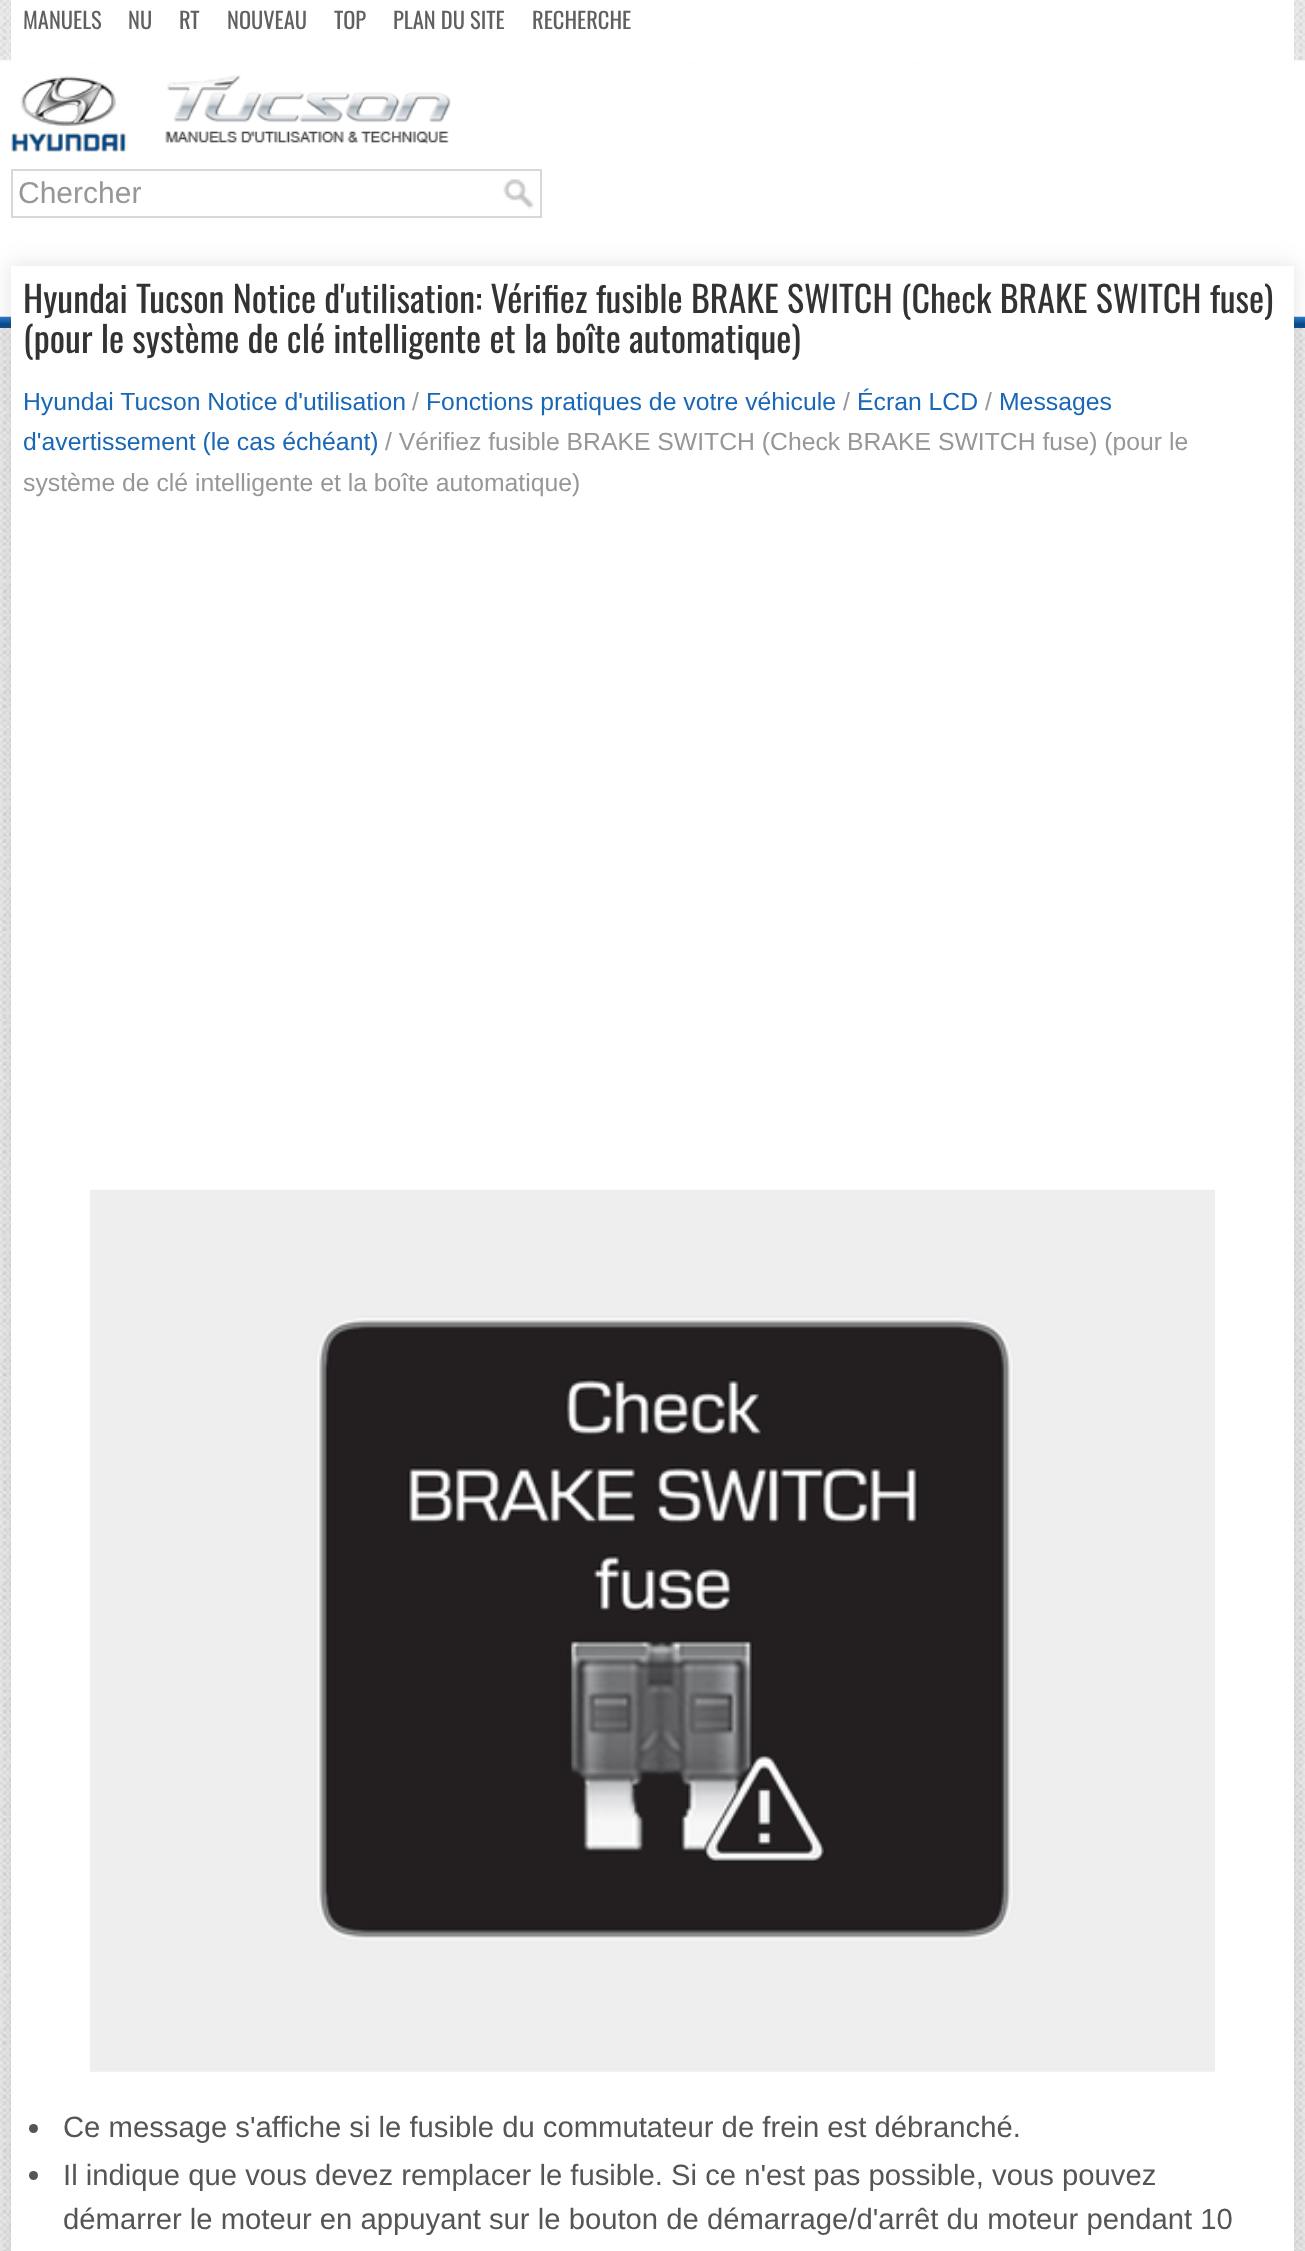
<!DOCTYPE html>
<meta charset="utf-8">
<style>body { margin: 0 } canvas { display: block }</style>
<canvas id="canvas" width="1305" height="2251"></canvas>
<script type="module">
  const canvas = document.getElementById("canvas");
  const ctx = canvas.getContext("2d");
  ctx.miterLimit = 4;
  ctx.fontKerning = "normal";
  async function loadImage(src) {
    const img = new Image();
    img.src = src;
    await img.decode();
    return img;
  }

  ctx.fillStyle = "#ffffff";
  ctx.fillRect(0, 0, 1305, 2251);
  ctx.drawImage(await loadImage("img1.png"), 0, 0, 1305, 2251);
  ctx.fillRect(11, 0, 1283, 61);
  ctx.font = "22.5px Oswald";
  ctx.fillStyle = "#606060";
  ctx.fillText("MANUELS", 23, 29);
  ctx.fillText("NU", 128, 29);
  ctx.fillText("RT", 179, 29);
  ctx.fillText("NOUVEAU", 227, 29);
  ctx.fillText("TOP", 334, 29);
  ctx.fillText("PLAN DU SITE", 393, 29);
  ctx.fillText("RECHERCHE", 532, 29);
  ctx.drawImage(await loadImage("img2.png"), 11, 75, 440, 77);
  ctx.strokeStyle = "#d8d8d8";
  ctx.lineWidth = 2;
  ctx.strokeRect(12, 170, 529, 47);
  ctx.font = "30px Liberation Sans";
  ctx.fillStyle = "#979797";
  ctx.fillText("Chercher", 18, 203);
  ctx.drawImage(await loadImage("img3.png"), 503, 179, 31, 30);
  ctx.fillStyle = "rgba(96, 96, 96, 0.15)";
  ctx.filter = "blur(10px)";
  ctx.beginPath();
  ctx.rect(9, 263, 1287, 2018);
  ctx.fill();
  ctx.filter = "none";
  ctx.fillStyle = "#ffffff";
  ctx.fillRect(11, 266, 1283, 1985);
  ctx.font = "36px Oswald";
  ctx.fillStyle = "#333333";
  ctx.fillText("Hyundai Tucson Notice d'utilisation: Vérifiez fusible BRAKE SWITCH (Check BRAKE SWITCH fuse)", 23, 313);
  ctx.fillText("(pour le système de clé intelligente et la boîte automatique)", 23, 353);
  ctx.font = "24.75px Liberation Sans";
  ctx.fillStyle = "#1a67b5";
  ctx.fillText("Hyundai Tucson Notice d'utilisation", 23, 410);
  ctx.fillStyle = "#979797";
  ctx.fillText("/", 412, 410);
  ctx.fillStyle = "#1a67b5";
  ctx.fillText("Fonctions pratiques de votre véhicule", 426, 410);
  ctx.fillStyle = "#979797";
  ctx.fillText("/", 843, 410);
  ctx.fillStyle = "#1a67b5";
  ctx.fillText("Écran LCD", 857, 410);
  ctx.fillStyle = "#979797";
  ctx.fillText("/", 985, 410);
  ctx.fillStyle = "#1a67b5";
  ctx.fillText("Messages", 999, 410);
  ctx.fillText("d'avertissement (le cas échéant)", 23, 450);
  ctx.fillStyle = "#979797";
  ctx.fillText("/ Vérifiez fusible BRAKE SWITCH (Check BRAKE SWITCH fuse) (pour le", 385, 450);
  ctx.fillText("système de clé intelligente et la boîte automatique)", 23, 491);
  ctx.drawImage(await loadImage("img4.png"), 90, 1189, 1125, 883);
  ctx.fillStyle = "#555555";
  ctx.beginPath();
  ctx.arc(33.5, 2128.5, 4.5, 0, Math.PI * 2);
  ctx.fill();
  ctx.font = "29.25px Liberation Sans";
  ctx.fillText("Ce message s'affiche si le fusible du commutateur de frein est débranché.", 63, 2137);
  ctx.beginPath();
  ctx.arc(33.5, 2175.5, 4.5, 0, Math.PI * 2);
  ctx.fill();
  ctx.fillText("Il indique que vous devez remplacer le fusible. Si ce n'est pas possible, vous pouvez", 63, 2185);
  ctx.fillText("démarrer le moteur en appuyant sur le bouton de démarrage/d'arrêt du moteur pendant 10", 63, 2229);
</script>
